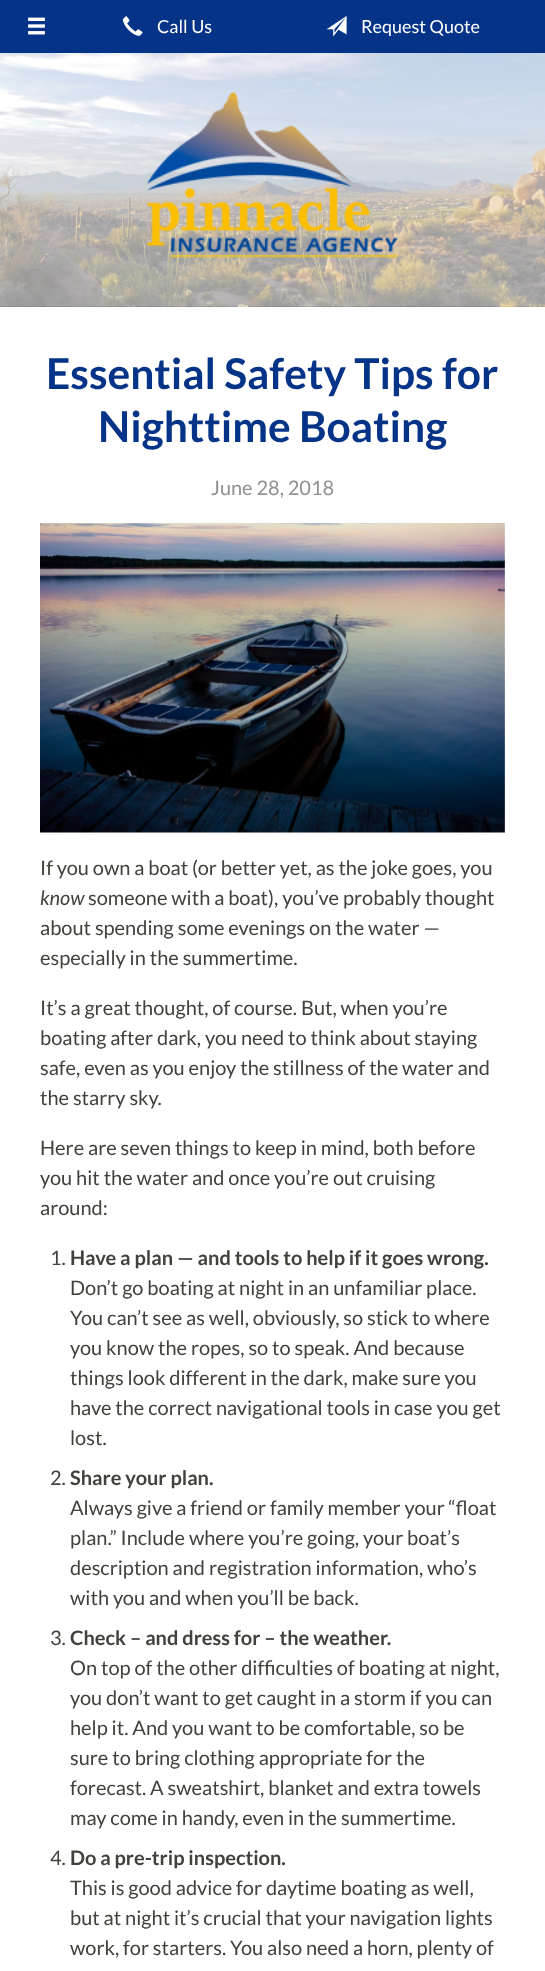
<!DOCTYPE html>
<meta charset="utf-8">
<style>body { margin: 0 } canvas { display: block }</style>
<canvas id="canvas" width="545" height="1971"></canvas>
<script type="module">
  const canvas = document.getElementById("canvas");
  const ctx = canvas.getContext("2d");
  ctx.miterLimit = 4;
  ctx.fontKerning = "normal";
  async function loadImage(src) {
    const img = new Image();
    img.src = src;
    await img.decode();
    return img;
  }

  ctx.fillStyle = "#043387";
  ctx.fillRect(0, 0, 545, 1971);
  ctx.drawImage(await loadImage("img1.png"), 28, 17, 17, 18);
  ctx.drawImage(await loadImage("img2.png"), 122, 16, 21, 20);
  ctx.font = "18px Lato";
  ctx.fillStyle = "#ffffff";
  ctx.fillText("Call Us", 157, 33);
  ctx.drawImage(await loadImage("img3.png"), 326, 16, 21, 21);
  ctx.fillText("Request Quote", 361, 33);
  ctx.fillRect(0, 306, 545, 1665);
  ctx.drawImage(await loadImage("img4.png"), 0, 53, 545, 254);
  ctx.drawImage(await loadImage("img5.png"), 147, 92, 251, 166);
  ctx.font = "bold 42.5px Lato";
  ctx.fillStyle = "#043387";
  ctx.fillText("Essential Safety Tips for", 46, 389);
  ctx.fillText("Nighttime Boating", 98, 442);
  ctx.font = "20px Lato";
  ctx.fillStyle = "#909090";
  ctx.fillText("June 28, 2018", 211, 495);
  ctx.drawImage(await loadImage("img6.png"), 40, 523, 465, 310);
  ctx.fillStyle = "#41423b";
  ctx.fillText("If you own a boat (or better yet, as the joke goes, you", 40, 875);
  ctx.font = "italic 20px Lato";
  ctx.fillText("know", 40, 905);
  ctx.font = "20px Lato";
  ctx.fillText("someone with a boat), you’ve probably thought", 88, 905);
  ctx.fillText("about spending some evenings on the water —", 40, 935);
  ctx.fillText("especially in the summertime.", 40, 965);
  ctx.fillText("It’s a great thought, of course. But, when you’re", 40, 1015);
  ctx.fillText("boating after dark, you need to think about staying", 40, 1045);
  ctx.fillText("safe, even as you enjoy the stillness of the water and", 40, 1075);
  ctx.fillText("the starry sky.", 40, 1105);
  ctx.fillText("Here are seven things to keep in mind, both before", 40, 1155);
  ctx.fillText("you hit the water and once you’re out cruising", 40, 1185);
  ctx.fillText("around:", 40, 1215);
  ctx.fillText("1.", 50, 1265);
  ctx.font = "bold 20px Lato";
  ctx.fillText("Have a plan — and tools to help if it goes wrong.", 70, 1265);
  ctx.font = "20px Lato";
  ctx.fillText("Don’t go boating at night in an unfamiliar place.", 70, 1295);
  ctx.fillText("You can’t see as well, obviously, so stick to where", 70, 1325);
  ctx.fillText("you know the ropes, so to speak. And because", 70, 1355);
  ctx.fillText("things look different in the dark, make sure you", 70, 1385);
  ctx.fillText("have the correct navigational tools in case you get", 70, 1415);
  ctx.fillText("lost.", 70, 1445);
  ctx.fillText("2.", 50, 1485);
  ctx.font = "bold 20px Lato";
  ctx.fillText("Share your plan.", 70, 1485);
  ctx.font = "20px Lato";
  ctx.fillText("Always give a friend or family member your “float", 70, 1515);
  ctx.fillText("plan.” Include where you’re going, your boat’s", 70, 1545);
  ctx.fillText("description and registration information, who’s", 70, 1575);
  ctx.fillText("with you and when you’ll be back.", 70, 1605);
  ctx.fillText("3.", 50, 1645);
  ctx.font = "bold 20px Lato";
  ctx.fillText("Check – and dress for – the weather.", 70, 1645);
  ctx.font = "20px Lato";
  ctx.fillText("On top of the other difficulties of boating at night,", 70, 1675);
  ctx.fillText("you don’t want to get caught in a storm if you can", 70, 1705);
  ctx.fillText("help it. And you want to be comfortable, so be", 70, 1735);
  ctx.fillText("sure to bring clothing appropriate for the", 70, 1765);
  ctx.fillText("forecast. A sweatshirt, blanket and extra towels", 70, 1795);
  ctx.fillText("may come in handy, even in the summertime.", 70, 1825);
  ctx.fillText("4.", 50, 1865);
  ctx.font = "bold 20px Lato";
  ctx.fillText("Do a pre-trip inspection.", 70, 1865);
  ctx.font = "20px Lato";
  ctx.fillText("This is good advice for daytime boating as well,", 70, 1895);
  ctx.fillText("but at night it’s crucial that your navigation lights", 70, 1925);
  ctx.fillText("work, for starters. You also need a horn, plenty of", 70, 1955);
</script>
